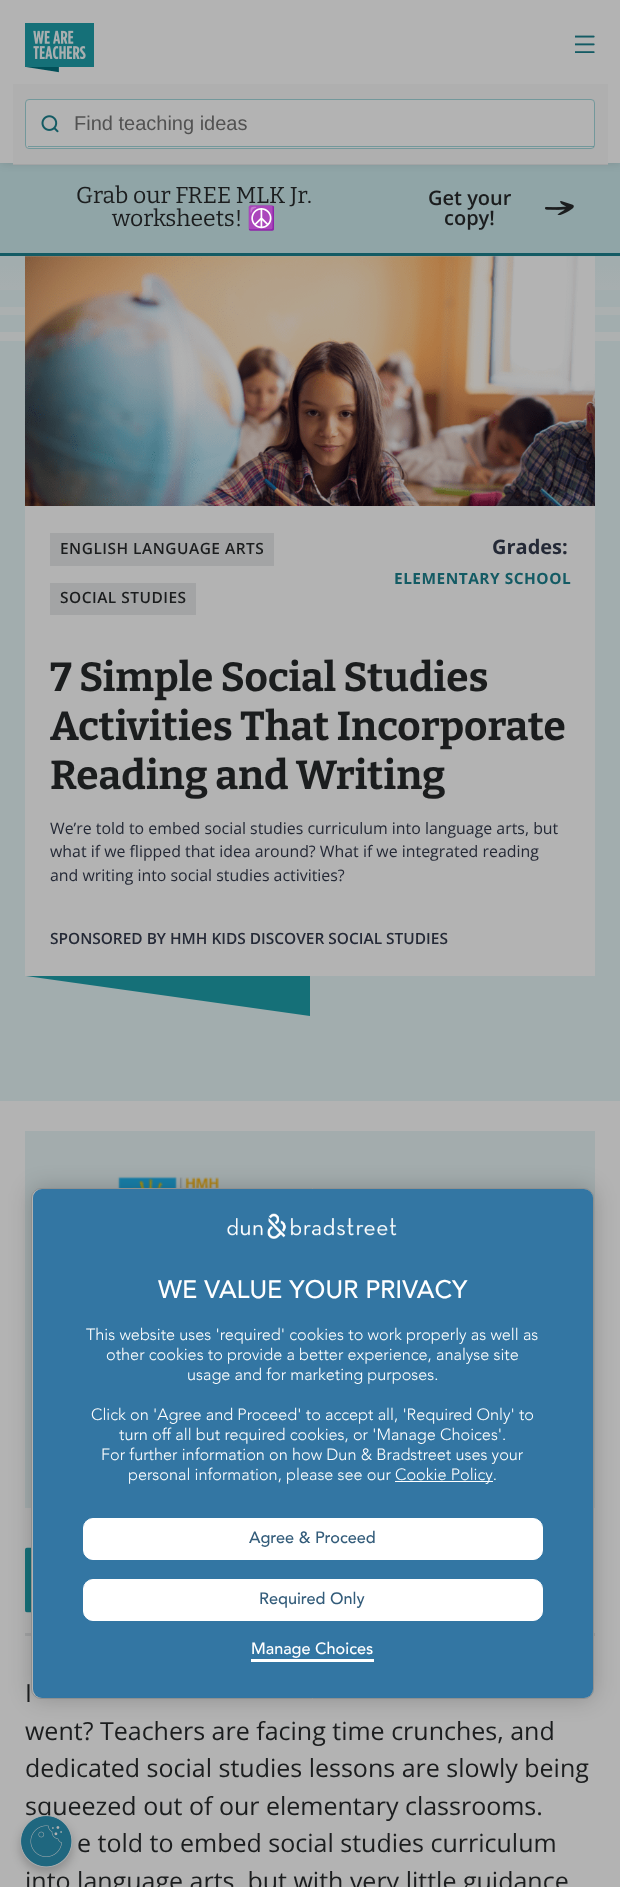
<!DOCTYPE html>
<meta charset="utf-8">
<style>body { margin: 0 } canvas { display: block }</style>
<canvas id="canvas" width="620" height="1887"></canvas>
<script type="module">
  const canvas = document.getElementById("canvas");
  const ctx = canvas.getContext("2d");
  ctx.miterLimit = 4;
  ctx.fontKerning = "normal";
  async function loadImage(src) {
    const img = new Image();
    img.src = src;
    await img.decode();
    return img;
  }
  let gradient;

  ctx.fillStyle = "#b3b3b3";
  ctx.fillRect(0, 0, 620, 1887);
  ctx.fillStyle = "#90a5a7";
  ctx.fillRect(0, 163, 620, 90);
  ctx.fillStyle = "rgba(0, 0, 0, 0.1)";
  ctx.filter = "blur(4px)";
  ctx.beginPath();
  ctx.rect(1, 1, 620, 163);
  ctx.fill();
  ctx.filter = "none";
  ctx.fillStyle = "#b3b3b3";
  ctx.fillRect(0, 0, 620, 163);
  ctx.drawImage(await loadImage("img1.png"), 25, 23, 69, 50);
  ctx.drawImage(await loadImage("img2.png"), 575, 35, 20, 18);
  ctx.fillStyle = "#afafaf";
  ctx.fillRect(13, 84, 595, 80);
  ctx.fillStyle = "#a3a4a5";
  ctx.fillRect(13, 164, 595, 1);
  ctx.fillStyle = "#b3b3b3";
  ctx.beginPath();
  ctx.roundRect(25.5, 99.5, 569, 49, 3.5);
  ctx.fill();
  ctx.strokeStyle = "#73989b";
  ctx.stroke();
  ctx.drawImage(await loadImage("img3.png"), 41, 115, 18, 18);
  ctx.fillStyle = "rgba(21, 112, 120, 0.4)";
  ctx.fillRect(28, 146, 566, 1);
  ctx.font = "20px Liberation Sans";
  ctx.fillStyle = "#525252";
  ctx.fillText("Find teaching ideas", 74, 130);
  ctx.fillStyle = "#145b64";
  ctx.fillRect(0, 253, 620, 3);
  ctx.font = "100 23px Bitter";
  ctx.fillStyle = "#1b1d1e";
  ctx.fillText("Grab our FREE MLK Jr.", 76, 203);
  ctx.font = "600 20px Open Sans";
  ctx.fillText("Get your", 428, 205);
  ctx.drawImage(await loadImage("img4.png"), 545, 201, 29, 14);
  ctx.fillText("copy!", 444, 225);
  ctx.font = "100 23px Bitter";
  ctx.fillText("worksheets!", 112, 226);
  ctx.font = "23px Noto Color Emoji";
  ctx.fillText("☮️", 247, 226);
  gradient = ctx.createLinearGradient(310, 1101, 310, 256);
  gradient.addColorStop(0, "#a2adae");
  gradient.addColorStop(0.9, "#a2adae");
  gradient.addColorStop(0.9, "#aeb1b1");
  gradient.addColorStop(0.91, "#aeb1b1");
  gradient.addColorStop(0.91, "#a2adae");
  gradient.addColorStop(0.93, "#a2adae");
  gradient.addColorStop(0.93, "#abb0b0");
  gradient.addColorStop(0.94, "#abb0b0");
  gradient.addColorStop(0.94, "#a2adae");
  gradient.addColorStop(0.96, "#a2adae");
  gradient.addColorStop(0.96, "#a7aeaf");
  gradient.addColorStop(0.99, "#a2adae");
  gradient.addColorStop(1, "#a2adae");
  ctx.fillStyle = gradient;
  ctx.fillRect(0, 256, 620, 845);
  ctx.drawImage(await loadImage("img5.png"), 25, 256, 570, 250);
  ctx.fillStyle = "#b3b3b3";
  ctx.fillRect(25, 506, 570, 470);
  ctx.fillStyle = "#a3a4a5";
  ctx.fillRect(50, 533, 224, 33);
  ctx.letterSpacing = "0.5px";
  ctx.font = "600 15.45px Open Sans";
  ctx.fillStyle = "#1b1d1e";
  ctx.fillText("ENGLISH LANGUAGE ARTS", 60, 554);
  ctx.fillStyle = "#a3a4a5";
  ctx.fillRect(50, 583, 146, 32);
  ctx.fillStyle = "#1b1d1e";
  ctx.fillText("SOCIAL STUDIES", 60, 603);
  ctx.letterSpacing = "0px";
  ctx.font = "bold 20px Open Sans";
  ctx.fillStyle = "#242936";
  ctx.fillText("Grades:", 492, 554);
  ctx.letterSpacing = "0.5px";
  ctx.font = "bold 15.45px Open Sans";
  ctx.fillStyle = "#145b64";
  ctx.fillText("ELEMENTARY SCHOOL", 394, 584);
  ctx.letterSpacing = "0px";
  ctx.font = "100 40.5px 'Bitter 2'";
  ctx.fillStyle = "#1b1d1e";
  ctx.fillText("7 Simple Social Studies", 50, 691);
  ctx.fillText("Activities That Incorporate", 50, 740);
  ctx.fillText("Reading and Writing", 50, 789);
  ctx.font = "15.9px Open Sans";
  ctx.fillStyle = "#242936";
  ctx.fillText("We’re told to embed social studies curriculum into language arts, but", 50, 834);
  ctx.fillText("what if we flipped that idea around? What if we integrated reading", 50, 857);
  ctx.fillText("and writing into social studies activities?", 50, 881);
  ctx.font = "600 15.45px Open Sans";
  ctx.fillText("SPONSORED BY HMH KIDS DISCOVER SOCIAL STUDIES", 50, 944);
  ctx.fillStyle = "#157078";
  ctx.beginPath();
  ctx.moveTo(310, 976);
  ctx.lineTo(26, 976);
  ctx.lineTo(310, 1016);
  ctx.closePath();
  ctx.fill();
  ctx.fillStyle = "#a3acad";
  ctx.fillRect(25, 1131, 570, 377);
  ctx.drawImage(await loadImage("img8.png"), 117, 1176, 102, 12);
  ctx.fillStyle = "#a3a4a5";
  ctx.fillRect(25, 1633, 570, 3);
  ctx.drawImage(await loadImage("img9.png"), 25, 1547, 6, 66);
  ctx.fillStyle = "rgba(0, 0, 0, 0.2)";
  ctx.filter = "blur(11px)";
  ctx.beginPath();
  ctx.roundRect(31, 1188, 563, 511, 10);
  ctx.fill();
  ctx.filter = "none";
  ctx.fillStyle = "#b3b3b3";
  ctx.beginPath();
  ctx.roundRect(31.5, 1188.5, 562, 510, 9.5);
  ctx.fill();
  ctx.strokeStyle = "#8e9090";
  ctx.stroke();
  ctx.fillStyle = "#3376a3";
  ctx.beginPath();
  ctx.roundRect(33, 1189, 560, 509, 9);
  ctx.fill();
  ctx.drawImage(await loadImage("img6.png"), 227, 1213, 170, 26);
  ctx.font = "500 25px Avenir";
  ctx.fillStyle = "#ffffff";
  ctx.fillText("WE VALUE YOUR PRIVACY", 158, 1298);
  ctx.font = "300 16.25px Avenir";
  ctx.fillText("This website uses 'required' cookies to work properly as well as", 86, 1340);
  ctx.fillText("other cookies to provide a better experience, analyse site", 106, 1360);
  ctx.fillText("usage and for marketing purposes.", 187, 1380);
  ctx.fillText("Click on 'Agree and Proceed' to accept all, 'Required Only' to", 91, 1420);
  ctx.fillText("turn off all but required cookies, or 'Manage Choices'.", 119, 1440);
  ctx.fillText("For further information on how Dun & Bradstreet uses your", 101, 1460);
  ctx.fillText("personal information, please see our", 128, 1480);
  ctx.fillRect(395, 1481, 98, 1);
  ctx.fillText("Cookie Policy.", 395, 1480);
  ctx.beginPath();
  ctx.roundRect(83.5, 1518.5, 459, 41, 9.5);
  ctx.fill();
  ctx.strokeStyle = "#ffffff";
  ctx.stroke();
  ctx.font = "500 16.25px Avenir";
  ctx.fillStyle = "#335c7a";
  ctx.fillText("Agree & Proceed", 249, 1543);
  ctx.fillStyle = "#ffffff";
  ctx.beginPath();
  ctx.roundRect(83.5, 1579.5, 459, 41, 9.5);
  ctx.fill();
  ctx.stroke();
  ctx.fillStyle = "#335c7a";
  ctx.fillText("Required Only", 259, 1604);
  ctx.fillStyle = "#ffffff";
  ctx.fillText("Manage Choices", 251, 1654);
  ctx.fillRect(251, 1659, 123, 3);
  ctx.fillStyle = "rgba(0, 0, 0, 0.2)";
  ctx.filter = "blur(5px)";
  ctx.beginPath();
  ctx.roundRect(20, 1820, 53, 53, 26.5);
  ctx.fill();
  ctx.filter = "none";
  ctx.font = "25px Open Sans";
  ctx.fillStyle = "#1b1d1e";
  ctx.fillText("squeezed out of our elementary classrooms.", 25, 1815);
  ctx.drawImage(await loadImage("img7.png"), 20, 1815, 53, 53);
  ctx.fillText("I", 25, 1702);
  ctx.fillText("went? Teachers are facing time crunches, and", 25, 1740);
  ctx.fillText("dedicated social studies lessons are slowly being", 25, 1777);
  ctx.fillText("e told to embed social studies curriculum", 77, 1852);
  ctx.fillText("into language arts, but with very little guidance", 25, 1890);
</script>
